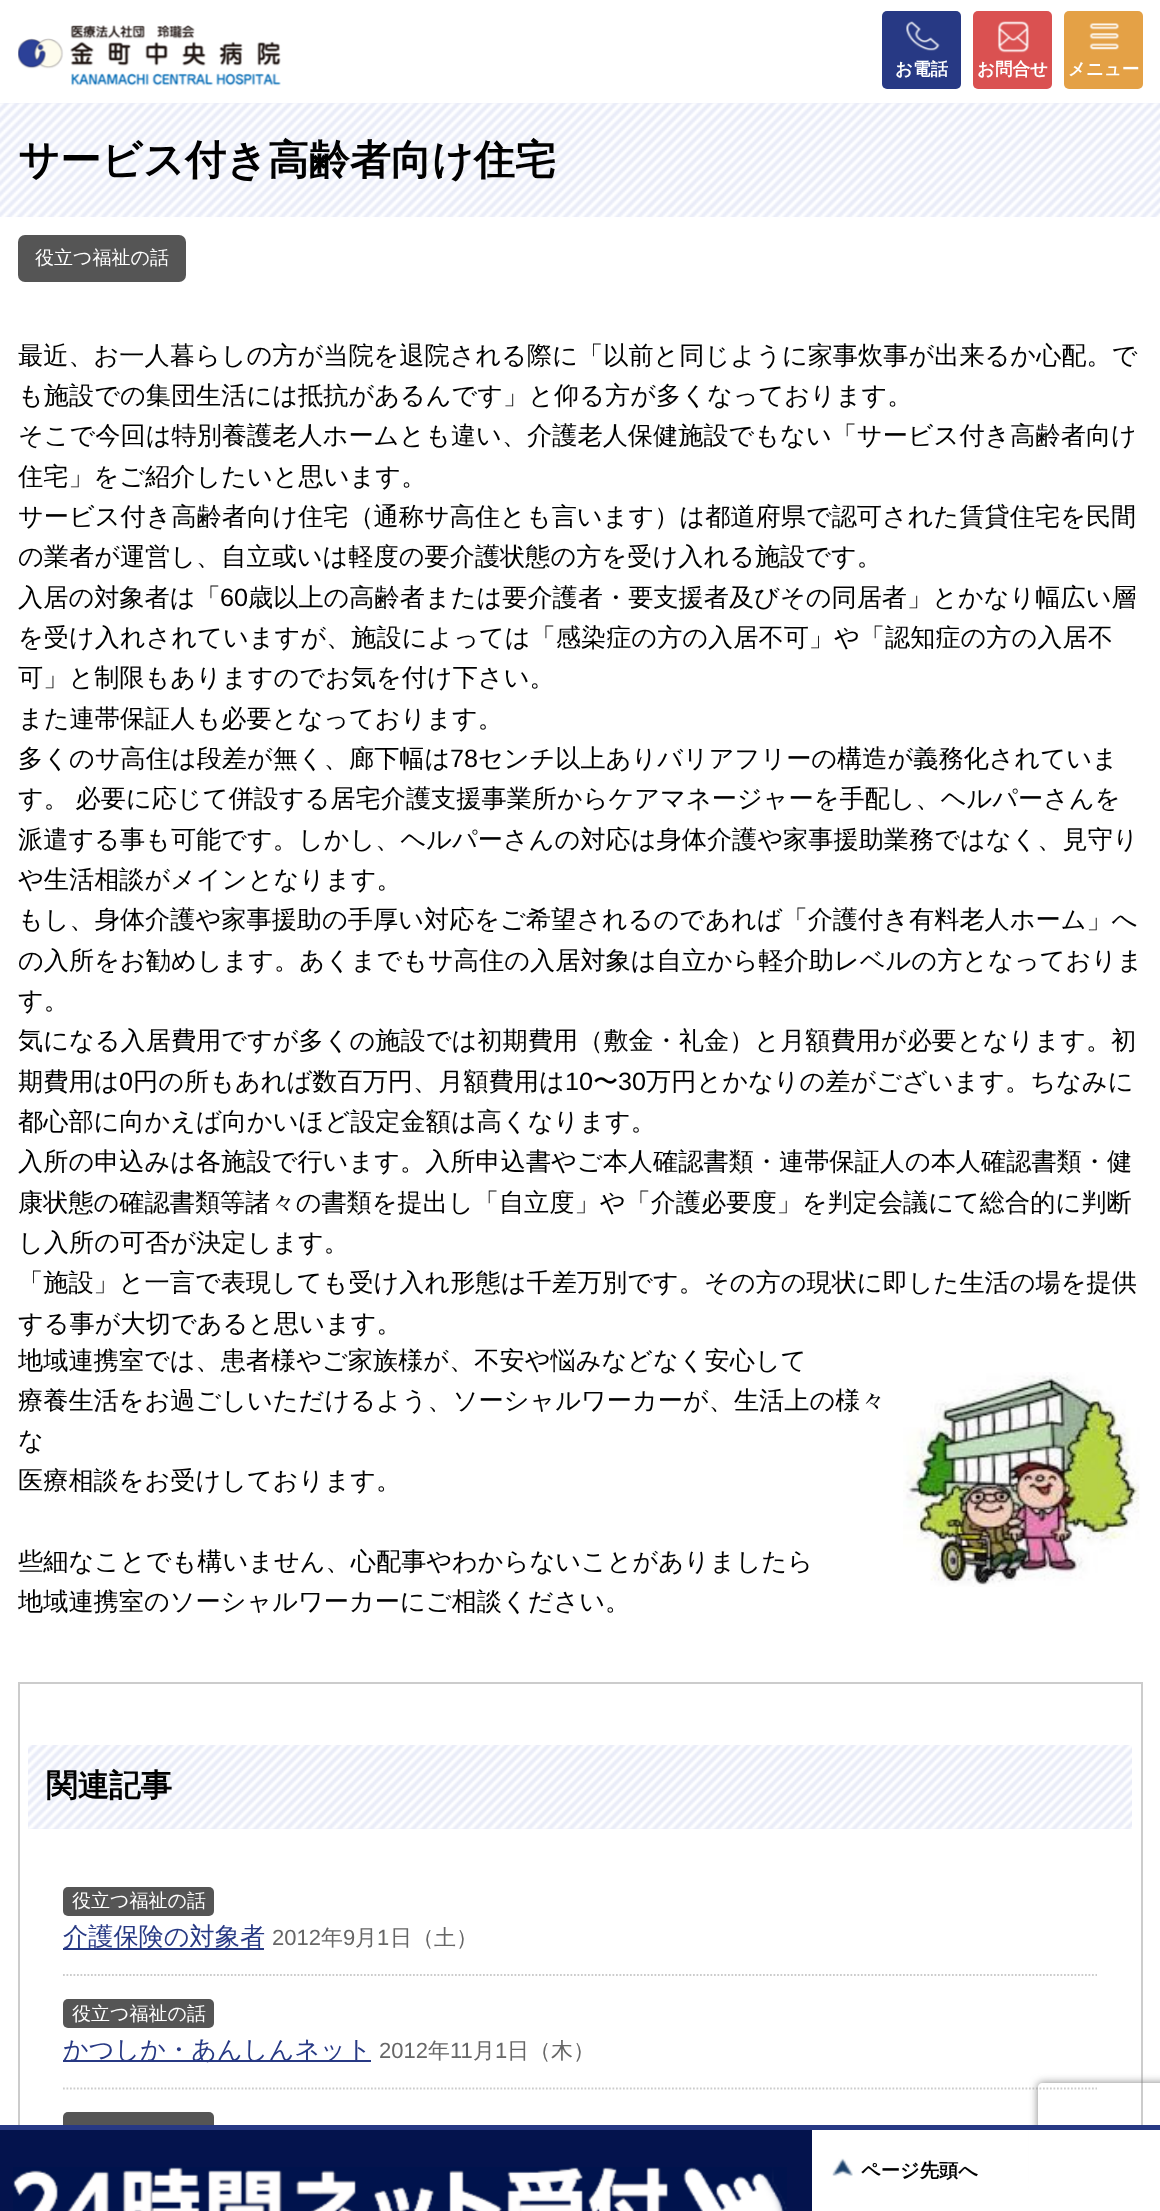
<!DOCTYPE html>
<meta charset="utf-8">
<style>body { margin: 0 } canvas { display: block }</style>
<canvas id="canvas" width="1160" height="2211"></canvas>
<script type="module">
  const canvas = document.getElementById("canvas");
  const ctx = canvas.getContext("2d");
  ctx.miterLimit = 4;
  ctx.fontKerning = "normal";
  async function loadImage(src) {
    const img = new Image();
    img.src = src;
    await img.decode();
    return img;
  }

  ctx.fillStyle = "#ffffff";
  ctx.fillRect(0, 0, 1160, 2211);
  ctx.drawImage(await loadImage("img1.png"), 18, 25, 263, 61);
  ctx.fillStyle = "#273984";
  ctx.beginPath();
  ctx.roundRect(882, 11, 79, 78, 5);
  ctx.fill();
  ctx.drawImage(await loadImage("img2.png"), 906, 21, 34, 30);
  ctx.font = "bold 17.5px WenQuanYi Zen Hei";
  ctx.fillStyle = "#ffffff";
  ctx.fillText("お電話", 895, 75);
  ctx.fillStyle = "#da5151";
  ctx.beginPath();
  ctx.roundRect(973, 11, 79, 78, 5);
  ctx.fill();
  ctx.drawImage(await loadImage("img3.png"), 997, 21, 32, 32);
  ctx.fillStyle = "#ffffff";
  ctx.fillText("お問合せ", 977, 75);
  ctx.fillStyle = "#e4a146";
  ctx.beginPath();
  ctx.roundRect(1064, 11, 79, 78, 5);
  ctx.fill();
  ctx.drawImage(await loadImage("img4.png"), 1089, 23, 30, 27);
  ctx.fillStyle = "#ffffff";
  ctx.fillText("メニュー", 1068, 75);
  ctx.fillStyle = "#e9ecf8";
  ctx.fillRect(0, 103, 1160, 114);
  ctx.drawImage(await loadImage("img5.png"), 0, 103, 1160, 114);
  ctx.font = "bold 41px WenQuanYi Zen Hei";
  ctx.fillStyle = "#000000";
  ctx.fillText("サービス付き高齢者向け住宅", 18, 174);
  ctx.fillStyle = "#555555";
  ctx.beginPath();
  ctx.roundRect(18, 235, 168, 47, 7);
  ctx.fill();
  ctx.font = "500 19px WenQuanYi Zen Hei";
  ctx.fillStyle = "#ffffff";
  ctx.fillText("役立つ福祉の話", 35, 264);
  ctx.font = "500 25.2px WenQuanYi Zen Hei";
  ctx.fillStyle = "#000000";
  ctx.fillText("最近、お一人暮らしの方が当院を退院される際に「以前と同じように家事炊事が出来るか心配。で", 18, 364);
  ctx.fillText("も施設での集団生活には抵抗があるんです」と仰る方が多くなっております。", 18, 404);
  ctx.fillText("そこで今回は特別養護老人ホームとも違い、介護老人保健施設でもない「サービス付き高齢者向け", 18, 444);
  ctx.fillText("住宅」をご紹介したいと思います。", 18, 485);
  ctx.fillText("サービス付き高齢者向け住宅（通称サ高住とも言います）は都道府県で認可された賃貸住宅を民間", 18, 525);
  ctx.fillText("の業者が運営し、自立或いは軽度の要介護状態の方を受け入れる施設です。", 18, 565);
  ctx.fillText("入居の対象者は「", 18, 606);
  ctx.font = "25.2px Liberation Sans";
  ctx.fillText("60", 220, 606);
  ctx.font = "500 25.2px WenQuanYi Zen Hei";
  ctx.fillText("歳以上の高齢者または要介護者・要支援者及びその同居者」とかなり幅広い層", 248, 606);
  ctx.fillText("を受け入れされていますが、施設によっては「感染症の方の入居不可」や「認知症の方の入居不", 18, 646);
  ctx.fillText("可」と制限もありますのでお気を付け下さい。", 18, 686);
  ctx.fillText("また連帯保証人も必要となっております。", 18, 727);
  ctx.fillText("多くのサ高住は段差が無く、廊下幅は", 18, 767);
  ctx.font = "25.2px Liberation Sans";
  ctx.fillText("78", 450, 767);
  ctx.font = "500 25.2px WenQuanYi Zen Hei";
  ctx.fillText("センチ以上ありバリアフリーの構造が義務化されていま", 478, 767);
  ctx.wordSpacing = "-1px";
  ctx.fillText("す。 必要に応じて併設する居宅介護支援事業所からケアマネージャーを手配し、ヘルパーさんを", 18, 807);
  ctx.wordSpacing = "0px";
  ctx.fillText("派遣する事も可能です。しかし、ヘルパーさんの対応は身体介護や家事援助業務ではなく、見守り", 18, 848);
  ctx.fillText("や生活相談がメインとなります。", 18, 888);
  ctx.fillText("もし、身体介護や家事援助の手厚い対応をご希望されるのであれば「介護付き有料老人ホーム」へ", 18, 928);
  ctx.fillText("の入所をお勧めします。あくまでもサ高住の入居対象は自立から軽介助レベルの方となっておりま", 18, 969);
  ctx.fillText("す。", 18, 1009);
  ctx.fillText("気になる入居費用ですが多くの施設では初期費用（敷金・礼金）と月額費用が必要となります。初", 18, 1049);
  ctx.fillText("期費用は", 18, 1090);
  ctx.font = "25.2px Liberation Sans";
  ctx.fillText("0", 119, 1090);
  ctx.font = "500 25.2px WenQuanYi Zen Hei";
  ctx.fillText("円の所もあれば数百万円、月額費用は", 133, 1090);
  ctx.font = "25.2px Liberation Sans";
  ctx.fillText("10", 565, 1090);
  ctx.font = "500 25.2px WenQuanYi Zen Hei";
  ctx.fillText("〜", 593, 1090);
  ctx.font = "25.2px Liberation Sans";
  ctx.fillText("30", 618, 1090);
  ctx.font = "500 25.2px WenQuanYi Zen Hei";
  ctx.fillText("万円とかなりの差がございます。ちなみに", 646, 1090);
  ctx.fillText("都心部に向かえば向かいほど設定金額は高くなります。", 18, 1130);
  ctx.fillText("入所の申込みは各施設で行います。入所申込書やご本人確認書類・連帯保証人の本人確認書類・健", 18, 1170);
  ctx.fillText("康状態の確認書類等諸々の書類を提出し「自立度」や「介護必要度」を判定会議にて総合的に判断", 18, 1211);
  ctx.fillText("し入所の可否が決定します。", 18, 1251);
  ctx.fillText("「施設」と一言で表現しても受け入れ形態は千差万別です。その方の現状に即した生活の場を提供", 18, 1291);
  ctx.fillText("する事が大切であると思います。", 18, 1332);
  ctx.fillText("地域連携室では、患者様やご家族様が、不安や悩みなどなく安心して", 18, 1369);
  ctx.fillText("療養生活をお過ごしいただけるよう、ソーシャルワーカーが、生活上の様々", 18, 1409);
  ctx.fillText("な", 18, 1449);
  ctx.fillText("医療相談をお受けしております。", 18, 1489);
  ctx.fillText("些細なことでも構いません、心配事やわからないことがありましたら", 18, 1570);
  ctx.fillText("地域連携室のソーシャルワーカーにご相談ください。", 18, 1610);
  ctx.drawImage(await loadImage("img6.png"), 903, 1372, 237, 215);
  ctx.strokeStyle = "#cccccc";
  ctx.lineWidth = 2;
  ctx.strokeRect(19, 1683, 1123, 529);
  ctx.fillStyle = "#e9ecf8";
  ctx.fillRect(28, 1745, 1104, 84);
  ctx.drawImage(await loadImage("img7.png"), 28, 1745, 1104, 84);
  ctx.font = "bold 31.5px WenQuanYi Zen Hei";
  ctx.fillStyle = "#000000";
  ctx.fillText("関連記事", 46, 1796);
  ctx.fillStyle = "#555555";
  ctx.beginPath();
  ctx.roundRect(63, 1887, 151, 29, 5);
  ctx.fill();
  ctx.font = "500 19px WenQuanYi Zen Hei";
  ctx.fillStyle = "#ffffff";
  ctx.fillText("役立つ福祉の話", 72, 1907);
  ctx.fillStyle = "#273984";
  ctx.fillRect(63, 1948, 201, 2);
  ctx.font = "500 25.2px WenQuanYi Zen Hei";
  ctx.fillText("介護保険の対象者", 63, 1945);
  ctx.font = "22px Liberation Sans";
  ctx.fillStyle = "#666666";
  ctx.fillText("2012", 272, 1945);
  ctx.font = "500 22px WenQuanYi Zen Hei";
  ctx.fillText("年", 321, 1945);
  ctx.font = "22px Liberation Sans";
  ctx.fillText("9", 343, 1945);
  ctx.font = "500 22px WenQuanYi Zen Hei";
  ctx.fillText("月", 355, 1945);
  ctx.font = "22px Liberation Sans";
  ctx.fillText("1", 377, 1945);
  ctx.font = "500 22px WenQuanYi Zen Hei";
  ctx.fillText("日（土）", 390, 1945);
  ctx.beginPath();
  ctx.moveTo(63, 1975);
  ctx.lineTo(1097, 1975);
  ctx.lineWidth = 1.8;
  ctx.setLineDash([1.75, 1.75]);
  ctx.stroke();
  ctx.fillStyle = "#555555";
  ctx.beginPath();
  ctx.roundRect(63, 1999, 151, 29, 5);
  ctx.fill();
  ctx.font = "500 19px WenQuanYi Zen Hei";
  ctx.fillStyle = "#ffffff";
  ctx.fillText("役立つ福祉の話", 72, 2020);
  ctx.fillStyle = "#273984";
  ctx.fillRect(63, 2060, 308, 2);
  ctx.font = "500 25.2px WenQuanYi Zen Hei";
  ctx.fillText("かつしか・あんしんネット", 63, 2058);
  ctx.font = "22px Liberation Sans";
  ctx.fillStyle = "#666666";
  ctx.fillText("2012", 379, 2058);
  ctx.font = "500 22px WenQuanYi Zen Hei";
  ctx.fillText("年", 428, 2058);
  ctx.font = "22px Liberation Sans";
  ctx.fillText("11", 450, 2058);
  ctx.font = "500 22px WenQuanYi Zen Hei";
  ctx.fillText("月", 473, 2058);
  ctx.font = "22px Liberation Sans";
  ctx.fillText("1", 495, 2058);
  ctx.font = "500 22px WenQuanYi Zen Hei";
  ctx.fillText("日（木）", 507, 2058);
  ctx.beginPath();
  ctx.moveTo(63, 2088.5);
  ctx.lineTo(1097, 2088.5);
  ctx.stroke();
  ctx.fillStyle = "#555555";
  ctx.beginPath();
  ctx.roundRect(63, 2112, 151, 30, 5);
  ctx.fill();
  ctx.save();
  ctx.beginPath();
  ctx.moveTo(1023, 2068);
  ctx.lineTo(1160, 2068);
  ctx.lineTo(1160, 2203);
  ctx.lineTo(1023, 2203);
  ctx.closePath();
  ctx.moveTo(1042, 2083);
  ctx.lineTo(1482, 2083);
  ctx.bezierCurveTo(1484, 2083, 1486, 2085, 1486, 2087);
  ctx.lineTo(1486, 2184);
  ctx.bezierCurveTo(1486, 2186, 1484, 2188, 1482, 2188);
  ctx.lineTo(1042, 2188);
  ctx.bezierCurveTo(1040, 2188, 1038, 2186, 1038, 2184);
  ctx.lineTo(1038, 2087);
  ctx.bezierCurveTo(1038, 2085, 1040, 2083, 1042, 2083);
  ctx.closePath();
  ctx.clip("evenodd");
  ctx.fillStyle = "#808080";
  ctx.filter = "blur(4.5px)";
  ctx.beginPath();
  ctx.roundRect(1038, 2083, 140, 105, 4);
  ctx.fill();
  ctx.filter = "none";
  ctx.restore();
  ctx.fillStyle = "#ffffff";
  ctx.fillRect(1029, 2130, 131, 81);
  ctx.fillStyle = "#273984";
  ctx.fillRect(0, 2125, 1160, 5);
  ctx.fillStyle = "#04134d";
  ctx.fillRect(0, 2130, 812, 81);
  ctx.drawImage(await loadImage("img8.png"), 13, 2167, 774, 44);
  ctx.drawImage(await loadImage("img9.png"), 832, 2158, 21, 18);
  ctx.font = "bold 19.25px WenQuanYi Zen Hei";
  ctx.fillStyle = "#000000";
  ctx.fillText("ページ先頭へ", 861, 2177);
</script>
